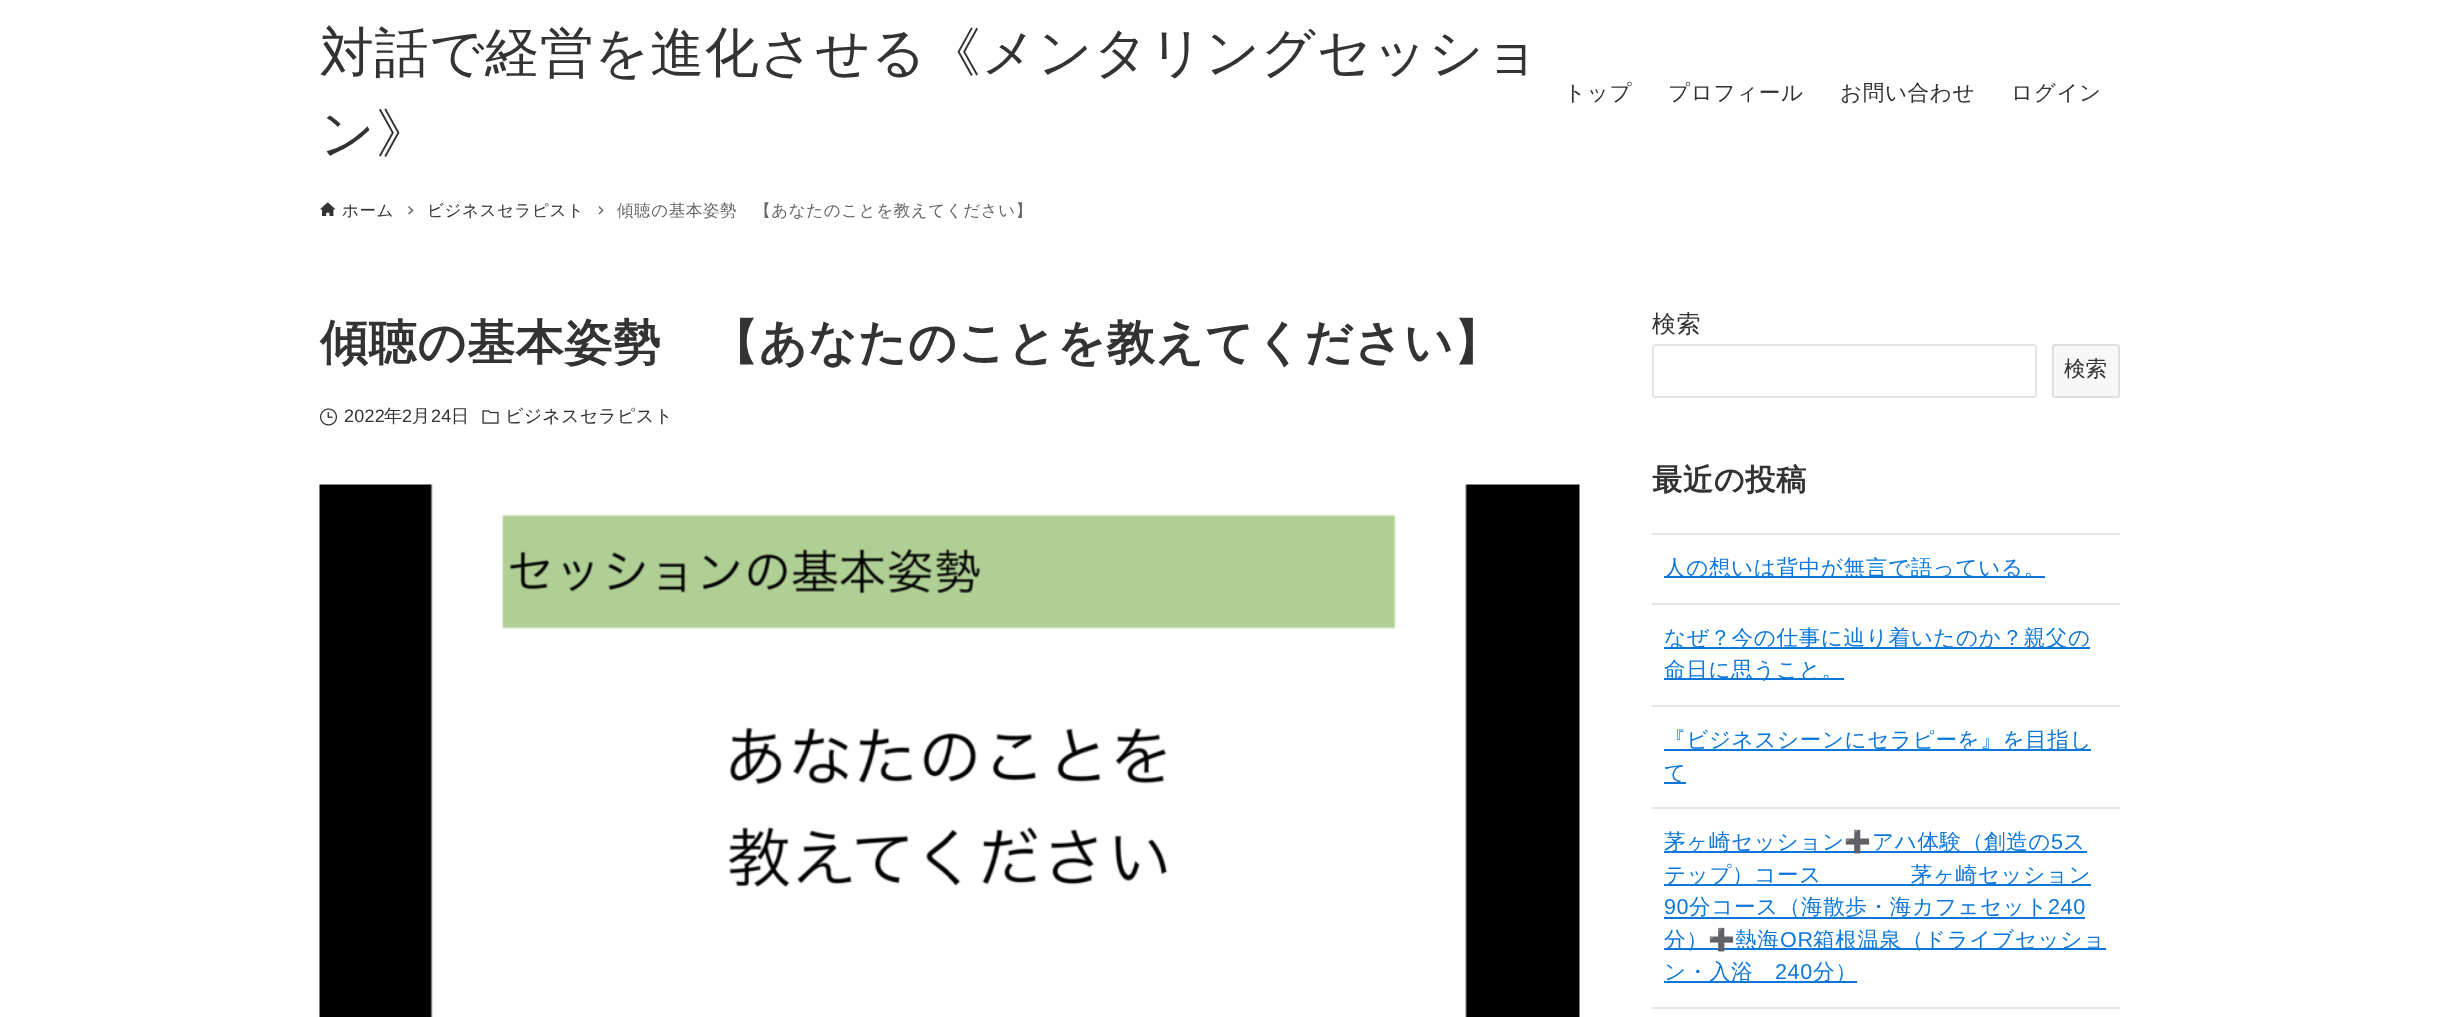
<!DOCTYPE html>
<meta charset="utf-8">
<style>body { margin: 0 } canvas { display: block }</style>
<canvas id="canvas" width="2439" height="1017"></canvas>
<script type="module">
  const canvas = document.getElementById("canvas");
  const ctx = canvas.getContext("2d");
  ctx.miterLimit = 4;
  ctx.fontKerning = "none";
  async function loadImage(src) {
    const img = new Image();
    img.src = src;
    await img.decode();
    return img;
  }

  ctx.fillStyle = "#ffffff";
  ctx.fillRect(0, 0, 2439, 1017);
  ctx.letterSpacing = "0.6px";
  ctx.font = "500 54px WenQuanYi Zen Hei";
  ctx.fillStyle = "#333333";
  ctx.fillText("対話で経営を進化させる《メンタリングセッショ", 320, 71);
  ctx.fillText("ン》", 320, 152);
  ctx.font = "500 21.6px WenQuanYi Zen Hei";
  ctx.fillText("トップ", 1564, 100);
  ctx.fillText("プロフィール", 1668, 100);
  ctx.fillText("お問い合わせ", 1840, 100);
  ctx.fillText("ログイン", 2011, 100);
  ctx.drawImage(await loadImage("img1.png"), 320, 202, 16, 14);
  ctx.font = "500 16.5px WenQuanYi Zen Hei";
  ctx.fillText("ホーム", 342, 216);
  ctx.fillStyle = "#666666";
  ctx.beginPath();
  ctx.moveTo(409, 206);
  ctx.lineTo(413.5, 210.5);
  ctx.lineTo(412.5, 211.5);
  ctx.lineTo(408, 207);
  ctx.closePath();
  ctx.fill();
  ctx.beginPath();
  ctx.moveTo(412.5, 209.5);
  ctx.lineTo(413.5, 210.5);
  ctx.lineTo(409, 214.5);
  ctx.lineTo(408, 213.5);
  ctx.closePath();
  ctx.fill();
  ctx.fillStyle = "#333333";
  ctx.fillText("ビジネスセラピスト", 427, 216);
  ctx.fillStyle = "#666666";
  ctx.beginPath();
  ctx.moveTo(599.5, 206);
  ctx.lineTo(603.5, 210.5);
  ctx.lineTo(602.5, 211.5);
  ctx.lineTo(598.5, 207);
  ctx.closePath();
  ctx.fill();
  ctx.beginPath();
  ctx.moveTo(602.5, 209.5);
  ctx.lineTo(603.5, 210.5);
  ctx.lineTo(599.5, 214.5);
  ctx.lineTo(598.5, 213.5);
  ctx.closePath();
  ctx.fill();
  ctx.fillText("傾聴の基本姿勢　【あなたのことを教えてください】", 617, 216);
  ctx.font = "bold 48px WenQuanYi Zen Hei";
  ctx.fillStyle = "#333333";
  ctx.fillText("傾聴の基本姿勢　【あなたのことを教えてください】", 320, 359);
  ctx.drawImage(await loadImage("img2.png"), 320, 408, 17, 18);
  ctx.letterSpacing = "0.25px";
  ctx.font = "18px Liberation Sans";
  ctx.fillText("2022", 344, 422);
  ctx.font = "500 18px WenQuanYi Zen Hei";
  ctx.fillText("年", 384, 422);
  ctx.font = "18px Liberation Sans";
  ctx.fillText("2", 402, 422);
  ctx.font = "500 18px WenQuanYi Zen Hei";
  ctx.fillText("月", 412, 422);
  ctx.font = "18px Liberation Sans";
  ctx.fillText("24", 431, 422);
  ctx.font = "500 18px WenQuanYi Zen Hei";
  ctx.fillText("日", 451, 422);
  ctx.drawImage(await loadImage("img3.png"), 482, 410, 17, 14);
  ctx.fillText("ビジネスセラピスト", 505, 422);
  ctx.drawImage(await loadImage("img4.png"), 319, 484, 1261, 533);
  ctx.letterSpacing = "0.6px";
  ctx.font = "500 24px WenQuanYi Zen Hei";
  ctx.fillText("検索", 1652, 332);
  ctx.beginPath();
  ctx.roundRect(1653, 345, 383, 52, 2);
  ctx.strokeStyle = "#e4e4e4";
  ctx.lineWidth = 2;
  ctx.stroke();
  ctx.fillStyle = "#f7f7f7";
  ctx.beginPath();
  ctx.roundRect(2052, 344, 68, 54, 3);
  ctx.fill();
  ctx.beginPath();
  ctx.roundRect(2053, 345, 66, 52, 2);
  ctx.strokeStyle = "rgba(200, 200, 200, 0.5)";
  ctx.stroke();
  ctx.letterSpacing = "0px";
  ctx.font = "500 21.6px WenQuanYi Zen Hei";
  ctx.fillStyle = "#333333";
  ctx.fillText("検索", 2064, 376);
  ctx.letterSpacing = "0.6px";
  ctx.font = "bold 30.25px WenQuanYi Zen Hei";
  ctx.fillText("最近の投稿", 1652, 490);
  ctx.fillStyle = "#e4e4e4";
  ctx.fillRect(1652, 533, 468, 2);
  ctx.fillRect(1652, 603, 468, 2);
  ctx.fillStyle = "#0d77d9";
  ctx.fillRect(1664, 576, 381, 2);
  ctx.font = "500 21.6px WenQuanYi Zen Hei";
  ctx.fillText("人の想いは背中が無言で語っている。", 1664, 575);
  ctx.fillStyle = "#e4e4e4";
  ctx.fillRect(1652, 705, 468, 2);
  ctx.fillStyle = "#0d77d9";
  ctx.fillRect(1664, 647, 426, 2);
  ctx.fillText("なぜ？今の仕事に辿り着いたのか？親父の", 1664, 645);
  ctx.fillRect(1664, 678, 180, 2);
  ctx.fillText("命日に思うこと。", 1664, 677);
  ctx.fillStyle = "#e4e4e4";
  ctx.fillRect(1652, 807, 468, 2);
  ctx.fillStyle = "#0d77d9";
  ctx.fillRect(1664, 749, 427, 2);
  ctx.fillText("『ビジネスシーンにセラピーを』を目指し", 1664, 747);
  ctx.fillRect(1664, 782, 22, 2);
  ctx.fillText("て", 1664, 780);
  ctx.fillStyle = "#e4e4e4";
  ctx.fillRect(1652, 1007, 468, 2);
  ctx.fillStyle = "#0d77d9";
  ctx.fillRect(1664, 851, 423, 2);
  ctx.fillText("茅ヶ崎セッション", 1664, 849);
  ctx.font = "21.6px Noto Color Emoji";
  ctx.fillText("➕", 1844, 849);
  ctx.font = "500 21.6px WenQuanYi Zen Hei";
  ctx.fillText("アハ体験（創造の", 1872, 849);
  ctx.font = "21.6px Liberation Sans";
  ctx.fillText("5", 2051, 849);
  ctx.font = "500 21.6px WenQuanYi Zen Hei";
  ctx.fillText("ス", 2063, 849);
  ctx.fillRect(1664, 884, 427, 2);
  ctx.fillText("テップ）コース　　　　茅ヶ崎セッション", 1664, 882);
  ctx.font = "21.6px Liberation Sans";
  ctx.fillText("90", 1664, 914);
  ctx.fillRect(1664, 917, 421, 2);
  ctx.font = "500 21.6px WenQuanYi Zen Hei";
  ctx.fillText("分コース（海散歩・海カフェセット", 1689, 914);
  ctx.font = "21.6px Liberation Sans";
  ctx.fillText("240", 2048, 914);
  ctx.fillRect(1664, 948, 442, 2);
  ctx.font = "500 21.6px WenQuanYi Zen Hei";
  ctx.fillText("分）", 1664, 947);
  ctx.font = "21.6px Noto Color Emoji";
  ctx.fillText("➕", 1708, 947);
  ctx.font = "500 21.6px WenQuanYi Zen Hei";
  ctx.fillText("熱海", 1735, 947);
  ctx.font = "21.6px Liberation Sans";
  ctx.fillText("OR", 1780, 947);
  ctx.font = "500 21.6px WenQuanYi Zen Hei";
  ctx.fillText("箱根温泉（ドライブセッショ", 1813, 947);
  ctx.fillRect(1664, 981, 193, 2);
  ctx.fillText("ン・入浴", 1664, 979);
  ctx.font = "21.6px Liberation Sans";
  ctx.fillText("240", 1775, 979);
  ctx.font = "500 21.6px WenQuanYi Zen Hei";
  ctx.fillText("分）", 1813, 979);
</script>
